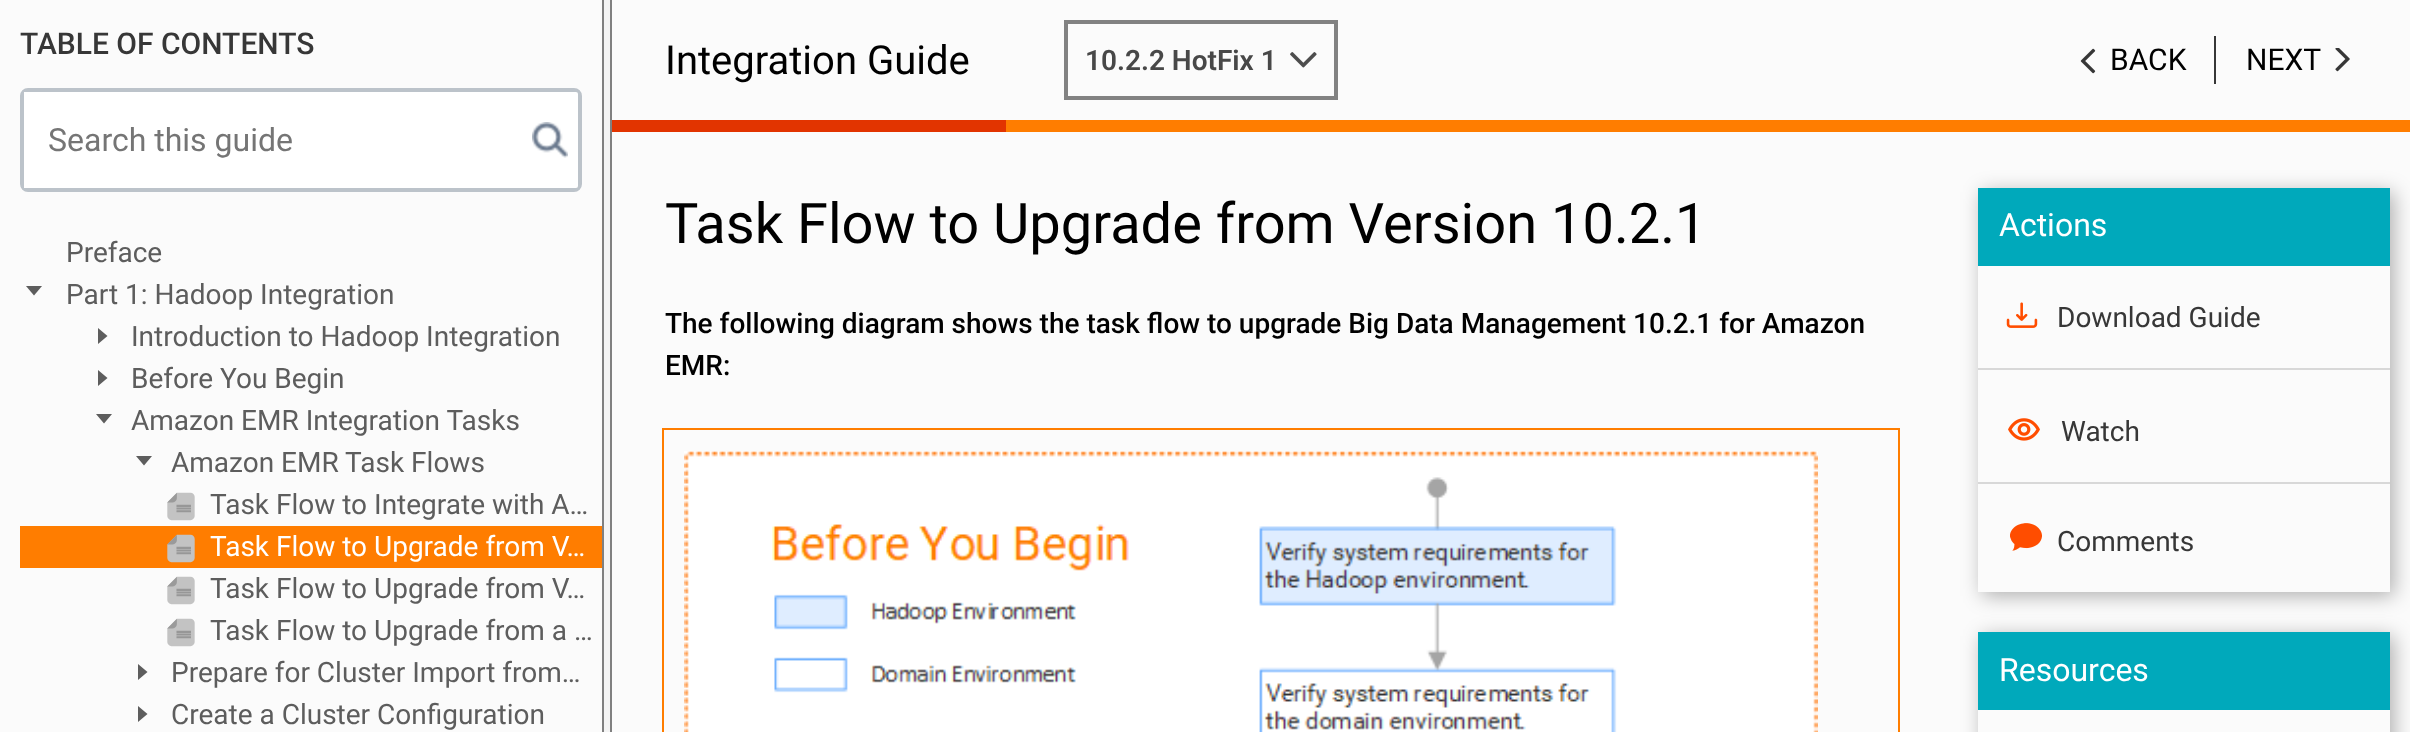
<!DOCTYPE html>
<meta charset="utf-8">
<style>body { margin: 0 } canvas { display: block }</style>
<canvas id="canvas" width="2410" height="732"></canvas>
<script type="module">
  const canvas = document.getElementById("canvas");
  const ctx = canvas.getContext("2d");
  ctx.miterLimit = 4;
  ctx.fontKerning = "normal";
  async function loadImage(src) {
    const img = new Image();
    img.src = src;
    await img.decode();
    return img;
  }

  ctx.fillStyle = "#fbfbfb";
  ctx.fillRect(0, 0, 2410, 732);
  ctx.font = "500 30px Roboto";
  ctx.fillStyle = "#373737";
  ctx.fillText("TABLE OF CONTENTS", 20, 54);
  ctx.fillStyle = "#ffffff";
  ctx.beginPath();
  ctx.roundRect(21, 89, 560, 102, 7);
  ctx.fill();
  ctx.strokeStyle = "#bcc3ca";
  ctx.lineWidth = 2;
  ctx.stroke();
  ctx.beginPath();
  ctx.roundRect(23, 91, 556, 98, 3);
  ctx.stroke();
  ctx.fillRect(24, 92, 2, 96);
  ctx.font = "32px Roboto";
  ctx.fillStyle = "#757575";
  ctx.fillText("Search this guide", 48, 151);
  ctx.drawImage(await loadImage("img1.png"), 532, 122, 36, 36);
  ctx.fillStyle = "#f4f4f4";
  ctx.fillRect(604, 0, 6, 732);
  ctx.fillStyle = "#808080";
  ctx.fillRect(610, 0, 2, 732);
  ctx.fillRect(602, 0, 2, 732);
  ctx.font = "28px Roboto";
  ctx.fillStyle = "#5d5d5d";
  ctx.fillText("Preface", 66, 262);
  ctx.beginPath();
  ctx.moveTo(42, 286);
  ctx.lineTo(34, 295.5);
  ctx.lineTo(26, 286);
  ctx.closePath();
  ctx.fill();
  ctx.fillText("Part 1: Hadoop Integration", 66, 304);
  ctx.beginPath();
  ctx.moveTo(98, 328);
  ctx.lineTo(107.5, 336);
  ctx.lineTo(98, 344);
  ctx.closePath();
  ctx.moveTo(98, 370);
  ctx.lineTo(107.5, 378);
  ctx.lineTo(98, 386);
  ctx.closePath();
  ctx.fill();
  ctx.fillText("Introduction to Hadoop Integration", 131, 346);
  ctx.fillText("Before You Begin", 131, 388);
  ctx.beginPath();
  ctx.moveTo(112, 414);
  ctx.lineTo(104, 423.5);
  ctx.lineTo(96, 414);
  ctx.closePath();
  ctx.moveTo(152, 456);
  ctx.lineTo(144, 465.5);
  ctx.lineTo(136, 456);
  ctx.closePath();
  ctx.fill();
  ctx.fillText("Amazon EMR Integration Tasks", 131, 430);
  ctx.fillText("Amazon EMR Task Flows", 171, 472);
  ctx.drawImage(await loadImage("img2.png"), 167, 492, 28, 29);
  ctx.fillText("Task Flow to Integrate with A…", 210, 514);
  ctx.fillStyle = "#ff7d00";
  ctx.fillRect(20, 526, 582, 42);
  ctx.drawImage(await loadImage("img3.png"), 167, 534, 28, 29);
  ctx.fillStyle = "#ffffff";
  ctx.fillText("Task Flow to Upgrade from V…", 210, 556);
  ctx.drawImage(await loadImage("img2.png"), 167, 576, 28, 29);
  ctx.fillStyle = "#5d5d5d";
  ctx.fillText("Task Flow to Upgrade from V…", 210, 598);
  ctx.drawImage(await loadImage("img2.png"), 167, 618, 28, 29);
  ctx.fillText("Task Flow to Upgrade from a …", 210, 640);
  ctx.beginPath();
  ctx.moveTo(138, 664);
  ctx.lineTo(147.5, 672);
  ctx.lineTo(138, 680);
  ctx.closePath();
  ctx.moveTo(138, 706);
  ctx.lineTo(147.5, 714);
  ctx.lineTo(138, 722);
  ctx.closePath();
  ctx.fill();
  ctx.fillText("Prepare for Cluster Import from…", 171, 682);
  ctx.fillText("Create a Cluster Configuration", 171, 724);
  ctx.font = "40px Roboto";
  ctx.fillStyle = "#000000";
  ctx.fillText("Integration Guide", 665, 74);
  ctx.strokeStyle = "#828282";
  ctx.lineWidth = 4;
  ctx.strokeRect(1066, 22, 270, 76);
  ctx.font = "600 28px Roboto";
  ctx.fillStyle = "#484848";
  ctx.fillText("10.2.2 HotFix 1", 1085, 70);
  ctx.drawImage(await loadImage("img4.png"), 1290, 52, 27, 16);
  ctx.drawImage(await loadImage("img5.png"), 2080, 48, 16, 26);
  ctx.font = "30px Roboto";
  ctx.fillStyle = "#000000";
  ctx.fillText("BACK", 2110, 70);
  ctx.fillStyle = "#373737";
  ctx.fillRect(2214, 36, 2, 48);
  ctx.fillStyle = "#000000";
  ctx.fillText("NEXT", 2246, 70);
  ctx.drawImage(await loadImage("img6.png"), 2335, 48, 15, 24);
  ctx.fillStyle = "#ff7d00";
  ctx.fillRect(1006, 120, 1404, 12);
  ctx.fillStyle = "#e23400";
  ctx.fillRect(612, 120, 394, 12);
  ctx.font = "56px Roboto";
  ctx.fillStyle = "#000000";
  ctx.fillText("Task Flow to Upgrade from Version 10.2.1", 665, 243);
  ctx.font = "500 28px Roboto";
  ctx.fillText("The following diagram shows the task flow to upgrade Big Data Management 10.2.1 for Amazon", 665, 333);
  ctx.fillText("EMR:", 665, 375);
  ctx.drawImage(await loadImage("img7.png"), 684, 451, 1134, 281);
  ctx.strokeStyle = "#ff7d00";
  ctx.lineWidth = 2;
  ctx.strokeRect(663, 429, 1236, 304);
  ctx.save();
  ctx.beginPath();
  ctx.moveTo(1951, 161);
  ctx.lineTo(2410, 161);
  ctx.lineTo(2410, 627);
  ctx.lineTo(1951, 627);
  ctx.closePath();
  ctx.moveTo(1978, 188);
  ctx.lineTo(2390, 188);
  ctx.lineTo(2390, 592);
  ctx.lineTo(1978, 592);
  ctx.closePath();
  ctx.clip("evenodd");
  ctx.fillStyle = "rgba(0, 0, 0, 0.3)";
  ctx.filter = "blur(10px)";
  ctx.beginPath();
  ctx.rect(1982, 192, 412, 404);
  ctx.fill();
  ctx.filter = "none";
  ctx.restore();
  ctx.fillStyle = "#00a9bb";
  ctx.fillRect(1978, 188, 412, 78);
  ctx.font = "32px Roboto";
  ctx.fillStyle = "#ffffff";
  ctx.fillText("Actions", 1999, 236);
  ctx.fillStyle = "#d8d8d8";
  ctx.fillRect(1978, 368, 412, 2);
  ctx.drawImage(await loadImage("img8.png"), 2006, 302, 32, 26);
  ctx.font = "28px Roboto";
  ctx.fillStyle = "#373737";
  ctx.fillText("Download Guide", 2057, 327);
  ctx.fillStyle = "#d8d8d8";
  ctx.fillRect(1978, 482, 412, 2);
  ctx.drawImage(await loadImage("img9.png"), 2008, 418, 32, 23);
  ctx.fillStyle = "#373737";
  ctx.fillText("Watch", 2061, 441);
  ctx.drawImage(await loadImage("img10.png"), 2010, 523, 32, 28);
  ctx.fillText("Comments", 2057, 551);
  ctx.save();
  ctx.beginPath();
  ctx.moveTo(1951, 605);
  ctx.lineTo(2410, 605);
  ctx.lineTo(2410, 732);
  ctx.lineTo(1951, 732);
  ctx.closePath();
  ctx.moveTo(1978, 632);
  ctx.lineTo(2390, 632);
  ctx.lineTo(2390, 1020);
  ctx.lineTo(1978, 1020);
  ctx.closePath();
  ctx.clip("evenodd");
  ctx.fillStyle = "rgba(0, 0, 0, 0.3)";
  ctx.filter = "blur(10px)";
  ctx.beginPath();
  ctx.rect(1982, 636, 412, 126);
  ctx.fill();
  ctx.filter = "none";
  ctx.restore();
  ctx.fillStyle = "#00a9bb";
  ctx.fillRect(1978, 632, 412, 78);
  ctx.font = "32px Roboto";
  ctx.fillStyle = "#ffffff";
  ctx.fillText("Resources", 1999, 681);
</script>
